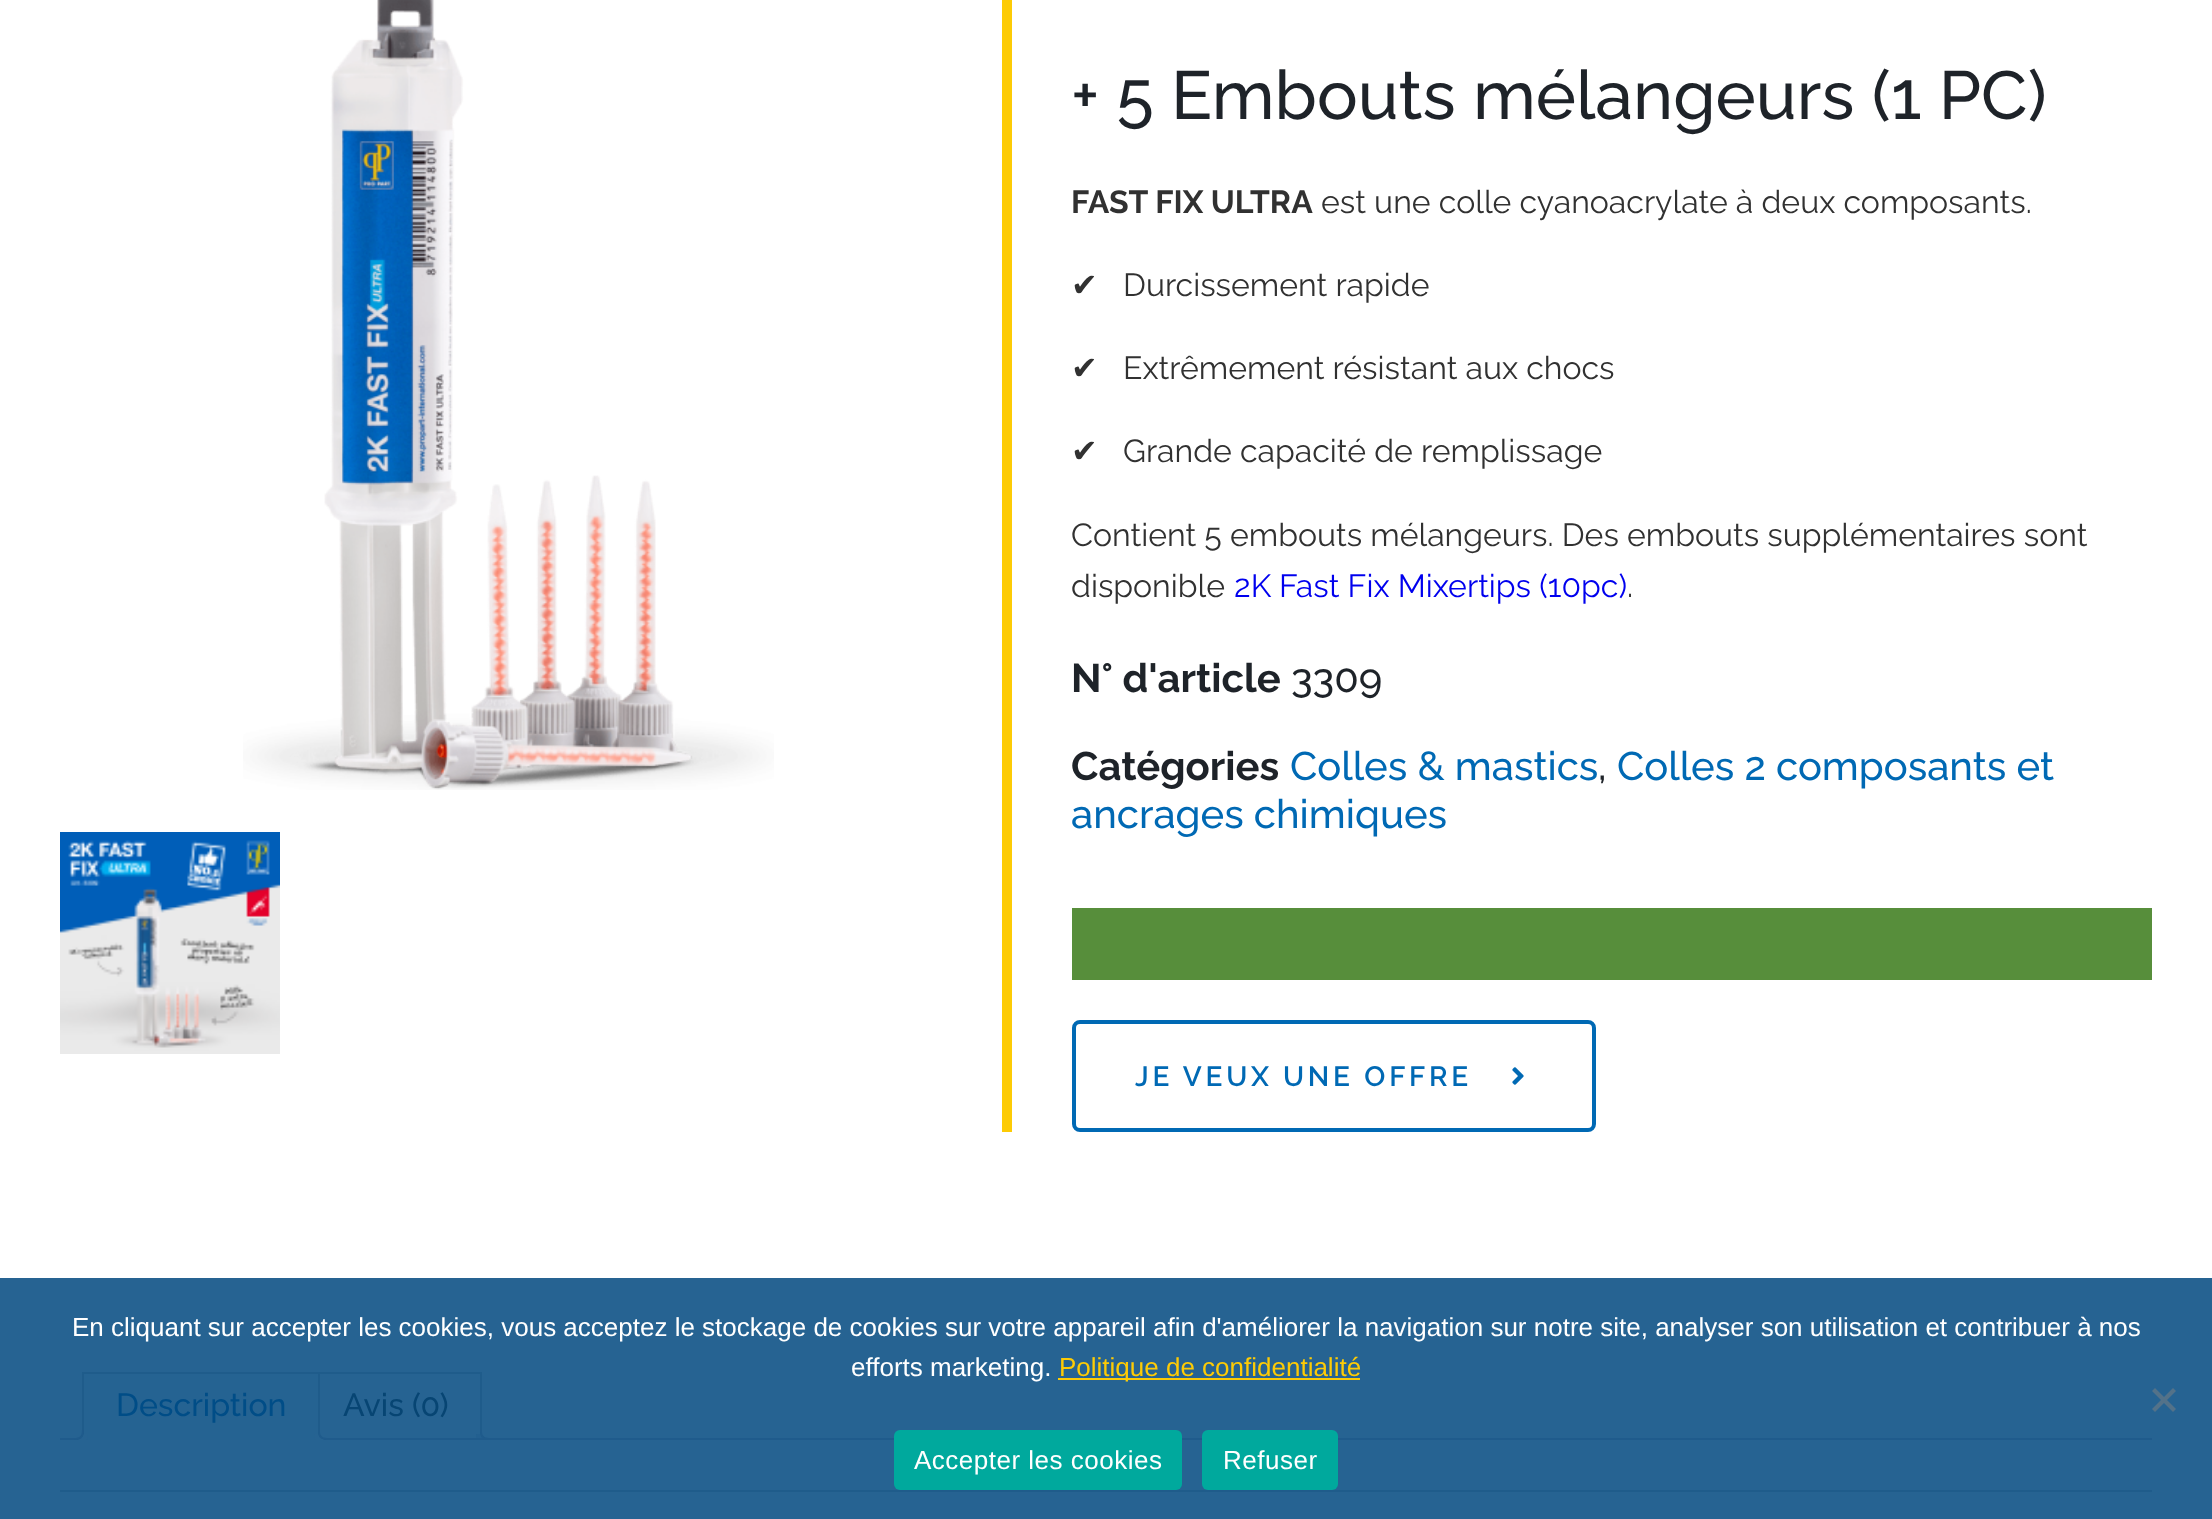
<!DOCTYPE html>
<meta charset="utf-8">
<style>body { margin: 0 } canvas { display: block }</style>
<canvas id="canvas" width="2212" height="1519"></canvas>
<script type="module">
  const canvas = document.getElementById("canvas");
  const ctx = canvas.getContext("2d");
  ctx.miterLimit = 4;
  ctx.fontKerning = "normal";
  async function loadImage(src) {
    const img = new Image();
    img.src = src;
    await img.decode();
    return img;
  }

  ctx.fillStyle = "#ffffff";
  ctx.fillRect(0, 0, 2212, 1519);
  ctx.fillStyle = "#266392";
  ctx.fillRect(0, 1278, 2212, 241);
  ctx.drawImage(await loadImage("img1.png"), 243, 0, 531, 790);
  ctx.drawImage(await loadImage("img2.png"), 60, 832, 220, 222);
  ctx.fillStyle = "#fdcb05";
  ctx.fillRect(1002, 0, 10, 1132);
  ctx.font = "500 68px Raleway";
  ctx.fillStyle = "#1e2329";
  ctx.fillText("+ 5 Embouts mélangeurs (1 PC)", 1071, 119);
  ctx.font = "bold 32px Raleway";
  ctx.fillStyle = "#313131";
  ctx.fillText("FAST FIX ULTRA", 1071, 213);
  ctx.font = "32px Raleway";
  ctx.fillText("est une colle cyanoacrylate à deux composants.", 1321, 213);
  ctx.font = "32px DejaVu Sans";
  ctx.fillText("✔︎", 1071, 296);
  ctx.font = "32px Raleway";
  ctx.fillText("Durcissement rapide", 1123, 296);
  ctx.font = "32px DejaVu Sans";
  ctx.fillText("✔︎", 1071, 379);
  ctx.font = "32px Raleway";
  ctx.fillText("Extrêmement résistant aux chocs", 1123, 379);
  ctx.font = "32px DejaVu Sans";
  ctx.fillText("✔︎", 1071, 462);
  ctx.font = "32px Raleway";
  ctx.fillText("Grande capacité de remplissage", 1123, 462);
  ctx.fillText("Contient 5 embouts mélangeurs. Des embouts supplémentaires sont", 1071, 546);
  ctx.fillText("disponible", 1071, 597);
  ctx.fillStyle = "#0000ee";
  ctx.fillText("2K Fast Fix Mixertips (10pc)", 1234, 597);
  ctx.fillStyle = "#313131";
  ctx.fillText(".", 1627, 597);
  ctx.font = "bold 40px Raleway";
  ctx.fillStyle = "#1e2329";
  ctx.fillText("N° d'article", 1071, 692);
  ctx.font = "500 40px Raleway";
  ctx.fillText("3309", 1291, 692);
  ctx.font = "bold 40px Raleway";
  ctx.fillText("Catégories", 1071, 780);
  ctx.font = "500 40px Raleway";
  ctx.fillStyle = "#0069b4";
  ctx.fillText("Colles & mastics", 1290, 780);
  ctx.fillStyle = "#1e2329";
  ctx.fillText(",", 1598, 780);
  ctx.fillStyle = "#0069b4";
  ctx.fillText("Colles 2 composants et", 1617, 780);
  ctx.fillText("ancrages chimiques", 1071, 828);
  ctx.fillStyle = "#578e3b";
  ctx.fillRect(1072, 908, 1080, 72);
  ctx.beginPath();
  ctx.roundRect(1074, 1022, 520, 108, 6);
  ctx.strokeStyle = "#0069b4";
  ctx.lineWidth = 4;
  ctx.stroke();
  ctx.letterSpacing = "3.75px";
  ctx.font = "600 28px Raleway";
  ctx.fillStyle = "#0069b4";
  ctx.fillText("JE VEUX UNE OFFRE", 1135, 1086);
  ctx.drawImage(await loadImage("img3.png"), 1512, 1067, 12, 18);
  ctx.strokeStyle = "#1f5c8b";
  ctx.lineWidth = 2;
  ctx.strokeRect(309, 1373, 172, 66);
  ctx.save();
  ctx.beginPath();
  ctx.rect(60, 1372, 2092, 68);
  ctx.clip();
  ctx.fillStyle = "#236090";
  ctx.beginPath();
  ctx.moveTo(304, 1439.5);
  ctx.lineTo(304, 1444);
  ctx.bezierCurveTo(311, 1444, 314, 1441, 314, 1434);
  ctx.lineTo(309.5, 1434);
  ctx.bezierCurveTo(309, 1437, 307, 1439, 304, 1439.5);
  ctx.closePath();
  ctx.fill();
  ctx.restore();
  ctx.fillStyle = "#1f5b8c";
  ctx.beginPath();
  ctx.moveTo(300, 1430);
  ctx.lineTo(310, 1430);
  ctx.bezierCurveTo(310, 1437, 307, 1440, 300, 1440);
  ctx.closePath();
  ctx.moveTo(300, 1430);
  ctx.lineTo(308, 1430);
  ctx.bezierCurveTo(308, 1436, 306, 1438, 300, 1438);
  ctx.closePath();
  ctx.fill("evenodd");
  ctx.save();
  ctx.beginPath();
  ctx.rect(60, 1372, 2092, 68);
  ctx.clip();
  ctx.fillStyle = "#236090";
  ctx.beginPath();
  ctx.moveTo(476, 1434);
  ctx.bezierCurveTo(476, 1441, 479, 1444, 486, 1444);
  ctx.lineTo(486, 1439.5);
  ctx.bezierCurveTo(483, 1439, 481, 1437, 480.5, 1434);
  ctx.closePath();
  ctx.fill();
  ctx.restore();
  ctx.beginPath();
  ctx.moveTo(480, 1430);
  ctx.lineTo(490, 1430);
  ctx.lineTo(490, 1440);
  ctx.bezierCurveTo(485, 1440, 480, 1438, 480, 1432);
  ctx.closePath();
  ctx.moveTo(482, 1430);
  ctx.lineTo(490, 1430);
  ctx.lineTo(490, 1438);
  ctx.bezierCurveTo(486, 1438, 482, 1437, 482, 1432);
  ctx.closePath();
  ctx.fill("evenodd");
  ctx.fillRect(60, 1438, 2092, 2);
  ctx.fillStyle = "rgba(38, 99, 146, 0.98)";
  ctx.fillRect(84, 1374, 234, 66);
  ctx.fillStyle = "#1f5c8b";
  ctx.fillRect(82, 1372, 226, 2);
  ctx.beginPath();
  ctx.moveTo(320, 1372);
  ctx.lineTo(320, 1440);
  ctx.lineTo(318, 1438);
  ctx.lineTo(318, 1374);
  ctx.closePath();
  ctx.fill();
  ctx.fillStyle = "rgba(38, 99, 146, 0.98)";
  ctx.beginPath();
  ctx.moveTo(320, 1440);
  ctx.lineTo(82, 1440);
  ctx.lineTo(84, 1438);
  ctx.lineTo(318, 1438);
  ctx.closePath();
  ctx.fill();
  ctx.fillStyle = "#1f5c8b";
  ctx.beginPath();
  ctx.moveTo(82, 1440);
  ctx.lineTo(82, 1372);
  ctx.lineTo(84, 1374);
  ctx.lineTo(84, 1438);
  ctx.closePath();
  ctx.fill();
  ctx.letterSpacing = "0px";
  ctx.font = "500 32px Raleway";
  ctx.fillStyle = "#004d87";
  ctx.fillText("Description", 116, 1416);
  ctx.save();
  ctx.beginPath();
  ctx.rect(60, 1372, 2092, 68);
  ctx.clip();
  ctx.fillStyle = "#266392";
  ctx.beginPath();
  ctx.moveTo(78, 1439.5);
  ctx.lineTo(78, 1444);
  ctx.bezierCurveTo(85, 1444, 88, 1441, 88, 1434);
  ctx.lineTo(83.5, 1434);
  ctx.bezierCurveTo(83, 1437, 81, 1439, 78, 1439.5);
  ctx.closePath();
  ctx.fill();
  ctx.restore();
  ctx.fillStyle = "#1f5b8c";
  ctx.beginPath();
  ctx.moveTo(74, 1430);
  ctx.lineTo(84, 1430);
  ctx.bezierCurveTo(84, 1437, 81, 1440, 74, 1440);
  ctx.closePath();
  ctx.moveTo(74, 1430);
  ctx.lineTo(82, 1430);
  ctx.bezierCurveTo(82, 1436, 80, 1438, 74, 1438);
  ctx.closePath();
  ctx.fill("evenodd");
  ctx.save();
  ctx.beginPath();
  ctx.rect(60, 1372, 2092, 68);
  ctx.clip();
  ctx.fillStyle = "#266392";
  ctx.beginPath();
  ctx.moveTo(314, 1434);
  ctx.bezierCurveTo(314, 1441, 317, 1444, 324, 1444);
  ctx.lineTo(324, 1439.5);
  ctx.bezierCurveTo(321, 1439, 319, 1437, 318.5, 1434);
  ctx.closePath();
  ctx.fill();
  ctx.restore();
  ctx.beginPath();
  ctx.moveTo(318, 1430);
  ctx.lineTo(328, 1430);
  ctx.lineTo(328, 1440);
  ctx.bezierCurveTo(323, 1440, 318, 1438, 318, 1432);
  ctx.closePath();
  ctx.moveTo(320, 1430);
  ctx.lineTo(328, 1430);
  ctx.lineTo(328, 1438);
  ctx.bezierCurveTo(324, 1438, 320, 1437, 320, 1432);
  ctx.closePath();
  ctx.fill("evenodd");
  ctx.fillStyle = "#074573";
  ctx.fillText("Avis (0)", 343, 1416);
  ctx.fillStyle = "#1f5c8b";
  ctx.fillRect(60, 1490, 2092, 2);
  ctx.font = "26px Liberation Sans";
  ctx.fillStyle = "#ffffff";
  ctx.fillText("En cliquant sur accepter les cookies, vous acceptez le stockage de cookies sur votre appareil afin d'améliorer la navigation sur notre site, analyser son utilisation et contribuer à nos", 72, 1336);
  ctx.fillText("efforts marketing.", 851, 1376);
  ctx.fillStyle = "#fdcb05";
  ctx.fillRect(1058, 1378, 302, 2);
  ctx.fillText("Politique de confidentialité", 1059, 1376);
  ctx.fillStyle = "#537289";
  ctx.beginPath();
  ctx.moveTo(2173, 1388);
  ctx.lineTo(2176, 1391);
  ctx.lineTo(2155, 1412);
  ctx.lineTo(2152, 1409);
  ctx.closePath();
  ctx.fill();
  ctx.beginPath();
  ctx.moveTo(2152, 1391);
  ctx.lineTo(2155, 1388);
  ctx.lineTo(2176, 1409);
  ctx.lineTo(2173, 1412);
  ctx.closePath();
  ctx.fill();
  ctx.fillStyle = "#00a99d";
  ctx.beginPath();
  ctx.roundRect(894, 1430, 288, 60, 6);
  ctx.fill();
  ctx.letterSpacing = "0.5px";
  ctx.fillStyle = "#ffffff";
  ctx.fillText("Accepter les cookies", 914, 1469);
  ctx.fillStyle = "#00a99d";
  ctx.beginPath();
  ctx.roundRect(1202, 1430, 136, 60, 6);
  ctx.fill();
  ctx.fillStyle = "#ffffff";
  ctx.fillText("Refuser", 1223, 1469);
</script>
